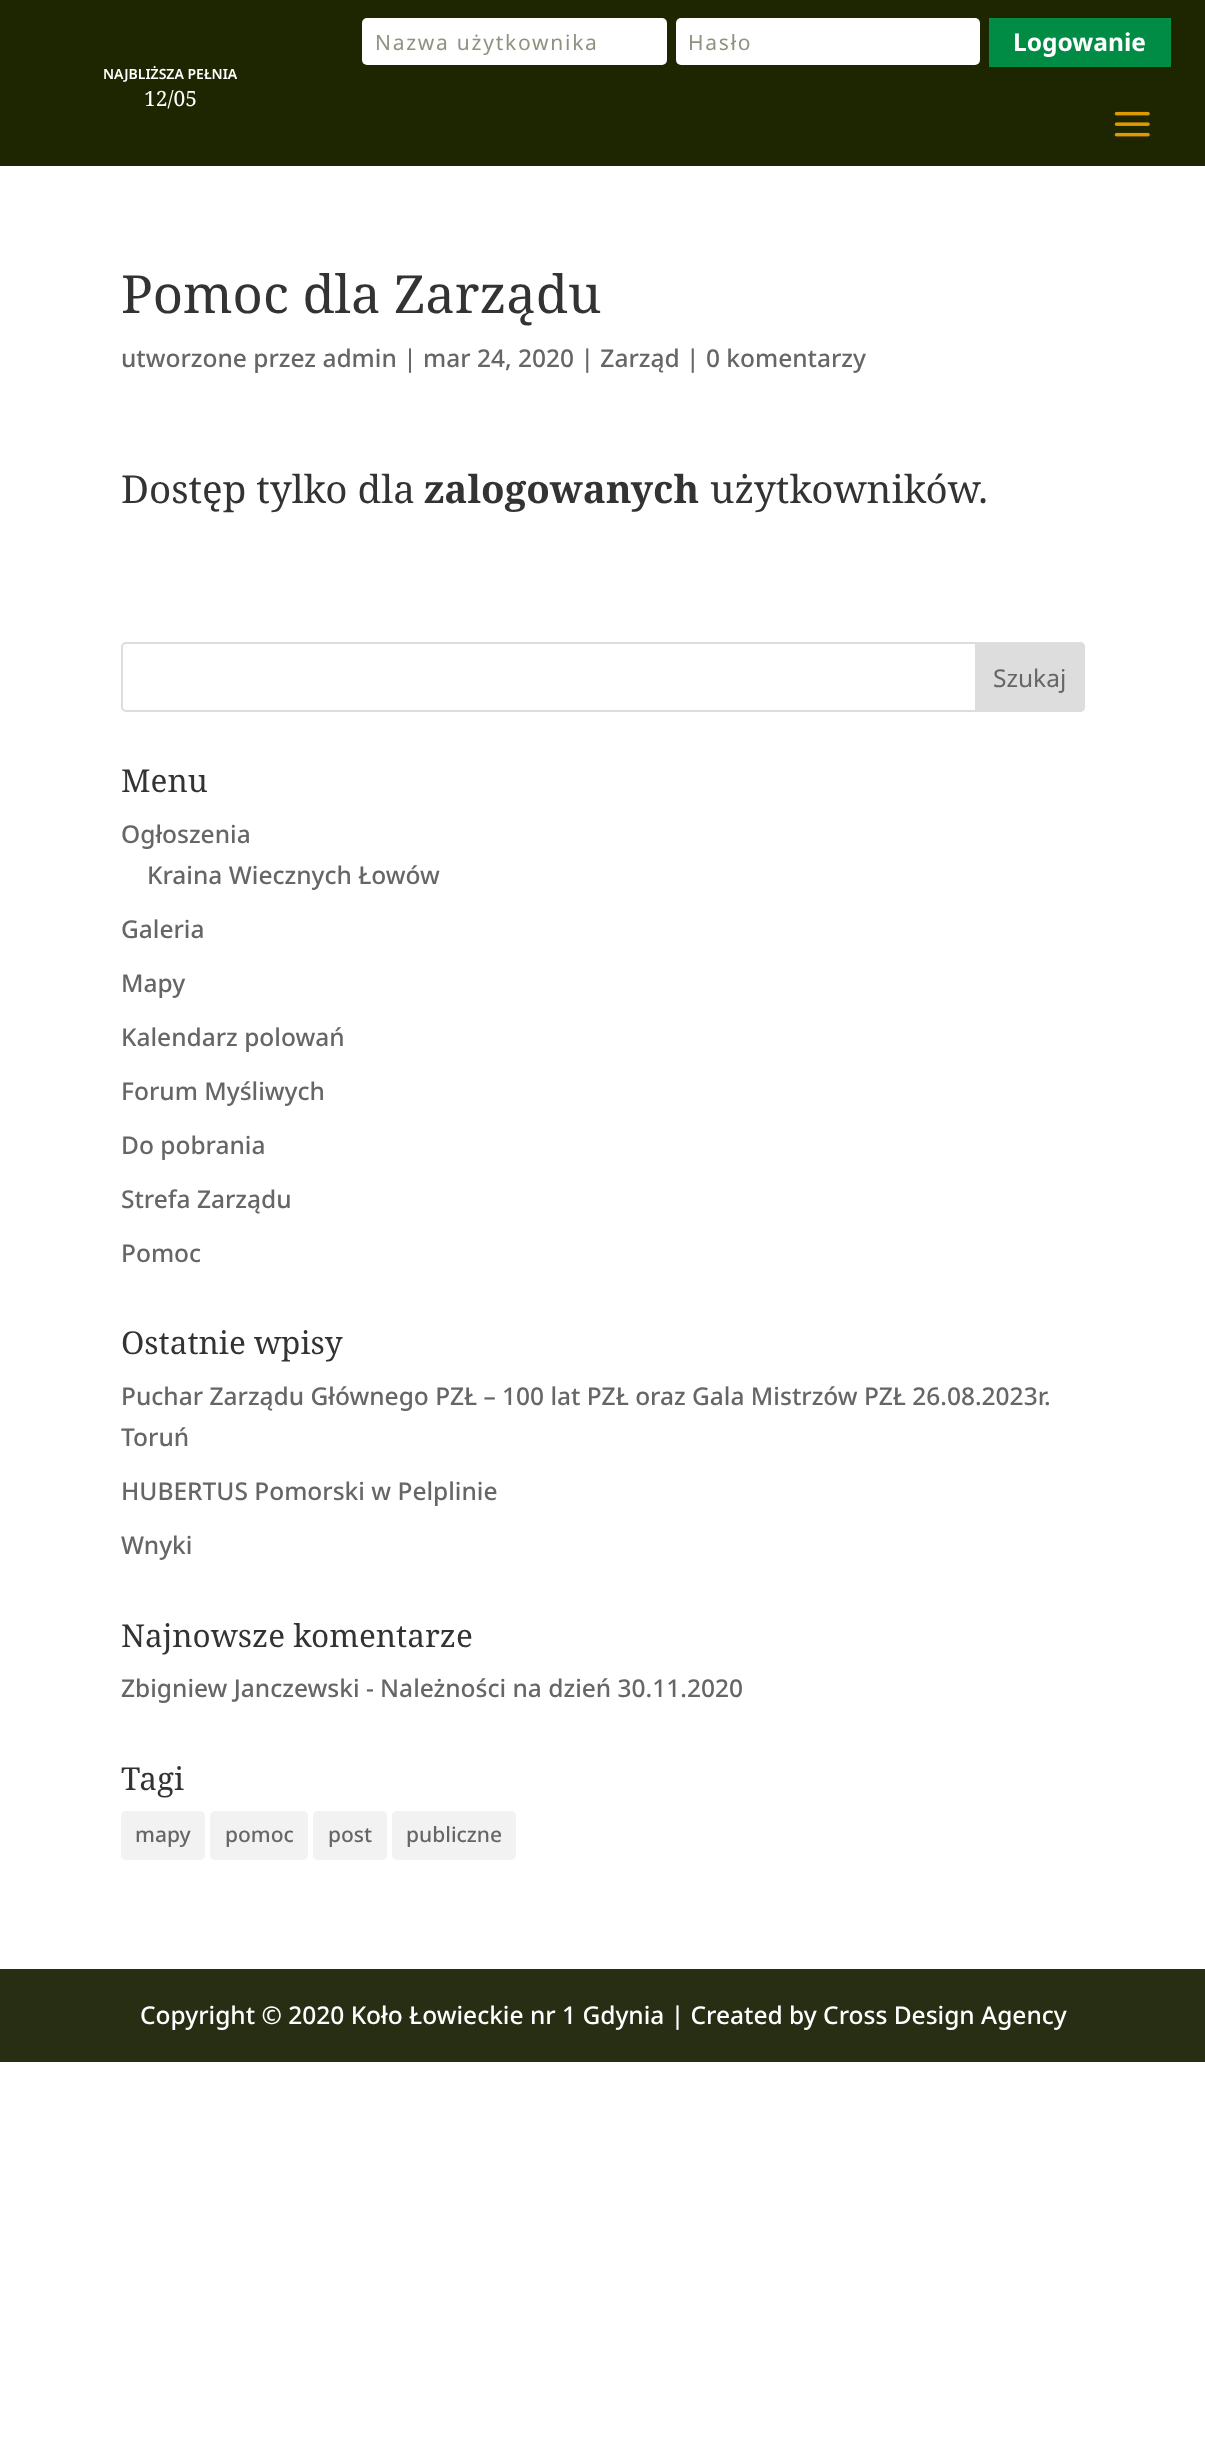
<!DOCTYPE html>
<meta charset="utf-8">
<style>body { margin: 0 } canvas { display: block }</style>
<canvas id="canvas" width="1205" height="2446"></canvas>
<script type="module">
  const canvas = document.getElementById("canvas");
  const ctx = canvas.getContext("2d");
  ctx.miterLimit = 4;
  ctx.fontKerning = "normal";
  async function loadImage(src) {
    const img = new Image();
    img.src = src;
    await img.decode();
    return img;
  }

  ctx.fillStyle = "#ffffff";
  ctx.fillRect(0, 0, 1205, 2446);
  ctx.fillStyle = "#1d2600";
  ctx.fillRect(0, 0, 1205, 166);
  ctx.fillStyle = "#ffffff";
  ctx.beginPath();
  ctx.roundRect(362, 18, 305, 47, 5);
  ctx.fill();
  ctx.letterSpacing = "1.75px";
  ctx.font = "21px Noto Sans";
  ctx.fillStyle = "#8e9380";
  ctx.fillText("Nazwa użytkownika", 375, 50);
  ctx.fillStyle = "#ffffff";
  ctx.beginPath();
  ctx.roundRect(676, 18, 304, 47, 5);
  ctx.fill();
  ctx.fillStyle = "#8e9380";
  ctx.fillText("Hasło", 688, 50);
  ctx.fillStyle = "#008c45";
  ctx.fillRect(989, 18, 182, 49);
  ctx.letterSpacing = "0px";
  ctx.font = "bold 24.5px Noto Sans";
  ctx.fillStyle = "#ffffff";
  ctx.fillText("Logowanie", 1013, 51);
  ctx.drawImage(await loadImage("img1.png"), 1114, 111, 36, 26);
  ctx.font = "600 14px Noto Sans";
  ctx.fillText("NAJBLIŻSZA PEŁNIA", 103, 79);
  ctx.font = "21px Noto Serif";
  ctx.fillText("12/05", 144, 106);
  ctx.font = "52.5px Noto Serif";
  ctx.fillStyle = "#333333";
  ctx.fillText("Pomoc dla Zarządu", 121, 313);
  ctx.font = "500 24.5px Noto Sans";
  ctx.fillStyle = "#666666";
  ctx.fillText("utworzone przez admin | mar 24, 2020 | Zarząd | 0 komentarzy", 121, 367);
  ctx.font = "38.5px Noto Serif";
  ctx.fillStyle = "#333333";
  ctx.fillText("Dostęp tylko dla", 121, 503);
  ctx.font = "bold 38.5px Noto Serif";
  ctx.fillText("zalogowanych", 424, 503);
  ctx.font = "38.5px Noto Serif";
  ctx.fillText("użytkowników.", 710, 503);
  ctx.beginPath();
  ctx.roundRect(122, 643, 962, 68, 4);
  ctx.strokeStyle = "#dddddd";
  ctx.lineWidth = 2;
  ctx.stroke();
  ctx.fillStyle = "#dddddd";
  ctx.beginPath();
  ctx.roundRect(976, 643, 108, 68, [0, 4, 4, 0]);
  ctx.fill();
  ctx.stroke();
  ctx.font = "24.5px Noto Sans";
  ctx.fillStyle = "#666666";
  ctx.fillText("Szukaj", 993, 687);
  ctx.font = "31.5px Noto Serif";
  ctx.fillStyle = "#333333";
  ctx.fillText("Menu", 121, 792);
  ctx.font = "500 24.5px Noto Sans";
  ctx.fillStyle = "#666666";
  ctx.fillText("Ogłoszenia", 121, 843);
  ctx.fillText("Kraina Wiecznych Łowów", 147, 884);
  ctx.fillText("Galeria", 121, 938);
  ctx.fillText("Mapy", 121, 992);
  ctx.fillText("Kalendarz polowań", 121, 1046);
  ctx.fillText("Forum Myśliwych", 121, 1100);
  ctx.fillText("Do pobrania", 121, 1154);
  ctx.fillText("Strefa Zarządu", 121, 1208);
  ctx.fillText("Pomoc", 121, 1262);
  ctx.font = "31.5px Noto Serif";
  ctx.fillStyle = "#333333";
  ctx.fillText("Ostatnie wpisy", 121, 1354);
  ctx.font = "500 24.5px Noto Sans";
  ctx.fillStyle = "#666666";
  ctx.fillText("Puchar Zarządu Głównego PZŁ – 100 lat PZŁ oraz Gala Mistrzów PZŁ 26.08.2023r.", 121, 1405);
  ctx.fillText("Toruń", 121, 1446);
  ctx.fillText("HUBERTUS Pomorski w Pelplinie", 121, 1500);
  ctx.fillText("Wnyki", 121, 1554);
  ctx.font = "31.5px Noto Serif";
  ctx.fillStyle = "#333333";
  ctx.fillText("Najnowsze komentarze", 121, 1647);
  ctx.font = "500 24.5px Noto Sans";
  ctx.fillStyle = "#666666";
  ctx.fillText("Zbigniew Janczewski - Należności na dzień 30.11.2020", 121, 1697);
  ctx.font = "31.5px Noto Serif";
  ctx.fillStyle = "#333333";
  ctx.fillText("Tagi", 121, 1790);
  ctx.fillStyle = "#f2f2f2";
  ctx.beginPath();
  ctx.roundRect(121, 1811, 84, 49, 5);
  ctx.fill();
  ctx.font = "500 21px Noto Sans";
  ctx.fillStyle = "#666666";
  ctx.fillText("mapy", 135, 1842);
  ctx.fillStyle = "#f2f2f2";
  ctx.beginPath();
  ctx.roundRect(210, 1811, 98, 49, 5);
  ctx.fill();
  ctx.fillStyle = "#666666";
  ctx.fillText("pomoc", 225, 1842);
  ctx.fillStyle = "#f2f2f2";
  ctx.beginPath();
  ctx.roundRect(313, 1811, 74, 49, 5);
  ctx.fill();
  ctx.fillStyle = "#666666";
  ctx.fillText("post", 328, 1842);
  ctx.fillStyle = "#f2f2f2";
  ctx.beginPath();
  ctx.roundRect(392, 1811, 124, 49, 5);
  ctx.fill();
  ctx.fillStyle = "#666666";
  ctx.fillText("publiczne", 406, 1842);
  ctx.fillStyle = "#282e13";
  ctx.fillRect(0, 1969, 1205, 93);
  ctx.font = "500 24.5px Noto Sans";
  ctx.fillStyle = "#ffffff";
  ctx.fillText("Copyright © 2020 Koło Łowieckie nr 1 Gdynia | Created by Cross Design Agency", 140, 2024);
</script>
